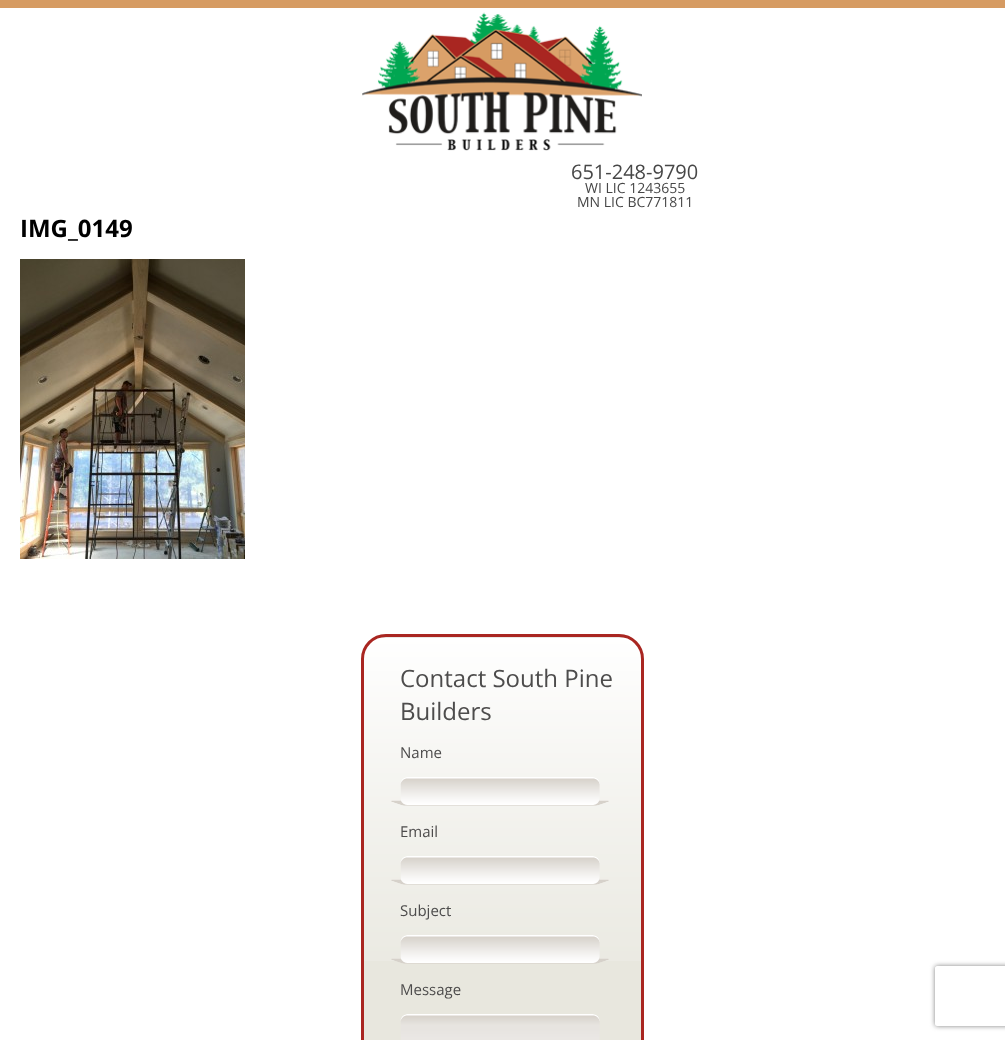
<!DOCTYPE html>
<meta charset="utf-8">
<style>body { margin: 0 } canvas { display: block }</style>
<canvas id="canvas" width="1005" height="1040"></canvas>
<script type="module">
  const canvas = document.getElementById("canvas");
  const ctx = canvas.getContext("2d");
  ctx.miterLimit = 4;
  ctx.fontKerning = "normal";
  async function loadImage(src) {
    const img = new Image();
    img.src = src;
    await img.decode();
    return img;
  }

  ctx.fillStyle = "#ffffff";
  ctx.fillRect(0, 0, 1005, 1040);
  ctx.fillStyle = "#d69b62";
  ctx.fillRect(0, 0, 1005, 8);
  ctx.drawImage(await loadImage("img1.png"), 362, 12, 280, 139);
  ctx.font = "20px Open Sans";
  ctx.fillStyle = "#474747";
  ctx.fillText("651-248-9790", 571, 179);
  ctx.font = "14px Open Sans";
  ctx.fillText("WI LIC 1243655", 585, 193);
  ctx.fillText("MN LIC BC771811", 577, 207);
  ctx.font = "bold 24px Open Sans";
  ctx.fillStyle = "#000000";
  ctx.fillText("IMG_0149", 20, 237);
  ctx.drawImage(await loadImage("img2.png"), 20, 259, 225, 300);
  ctx.fillStyle = "#e8e7de";
  ctx.beginPath();
  ctx.roundRect(361, 634, 283, 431, 25);
  ctx.fill();
  ctx.drawImage(await loadImage("img3.png"), 361, 637, 283, 324);
  ctx.beginPath();
  ctx.roundRect(362.5, 635.5, 280, 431, 23.5);
  ctx.strokeStyle = "#a92621";
  ctx.lineWidth = 3;
  ctx.stroke();
  ctx.font = "24px Open Sans";
  ctx.fillStyle = "#4d4c4c";
  ctx.fillText("Contact South Pine", 400, 687);
  ctx.fillText("Builders", 400, 720);
  ctx.font = "15px Open Sans";
  ctx.fillText("Name", 400, 758);
  ctx.drawImage(await loadImage("img4.png"), 391, 777, 218, 29);
  ctx.fillText("Email", 400, 837);
  ctx.drawImage(await loadImage("img5.png"), 391, 856, 218, 29);
  ctx.fillText("Subject", 400, 916);
  ctx.drawImage(await loadImage("img6.png"), 391, 935, 218, 29);
  ctx.fillText("Message", 400, 995);
  ctx.drawImage(await loadImage("img7.png"), 400, 1014, 200, 26);
  ctx.save();
  ctx.beginPath();
  ctx.moveTo(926, 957);
  ctx.lineTo(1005, 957);
  ctx.lineTo(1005, 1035);
  ctx.lineTo(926, 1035);
  ctx.closePath();
  ctx.moveTo(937, 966);
  ctx.lineTo(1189, 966);
  ctx.bezierCurveTo(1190, 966, 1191, 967, 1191, 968);
  ctx.lineTo(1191, 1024);
  ctx.bezierCurveTo(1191, 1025, 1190, 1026, 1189, 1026);
  ctx.lineTo(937, 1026);
  ctx.bezierCurveTo(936, 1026, 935, 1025, 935, 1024);
  ctx.lineTo(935, 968);
  ctx.bezierCurveTo(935, 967, 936, 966, 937, 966);
  ctx.closePath();
  ctx.clip("evenodd");
  ctx.fillStyle = "#808080";
  ctx.filter = "blur(2.5px)";
  ctx.beginPath();
  ctx.roundRect(935, 966, 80, 60, 2);
  ctx.fill();
  ctx.filter = "none";
  ctx.restore();
</script>
